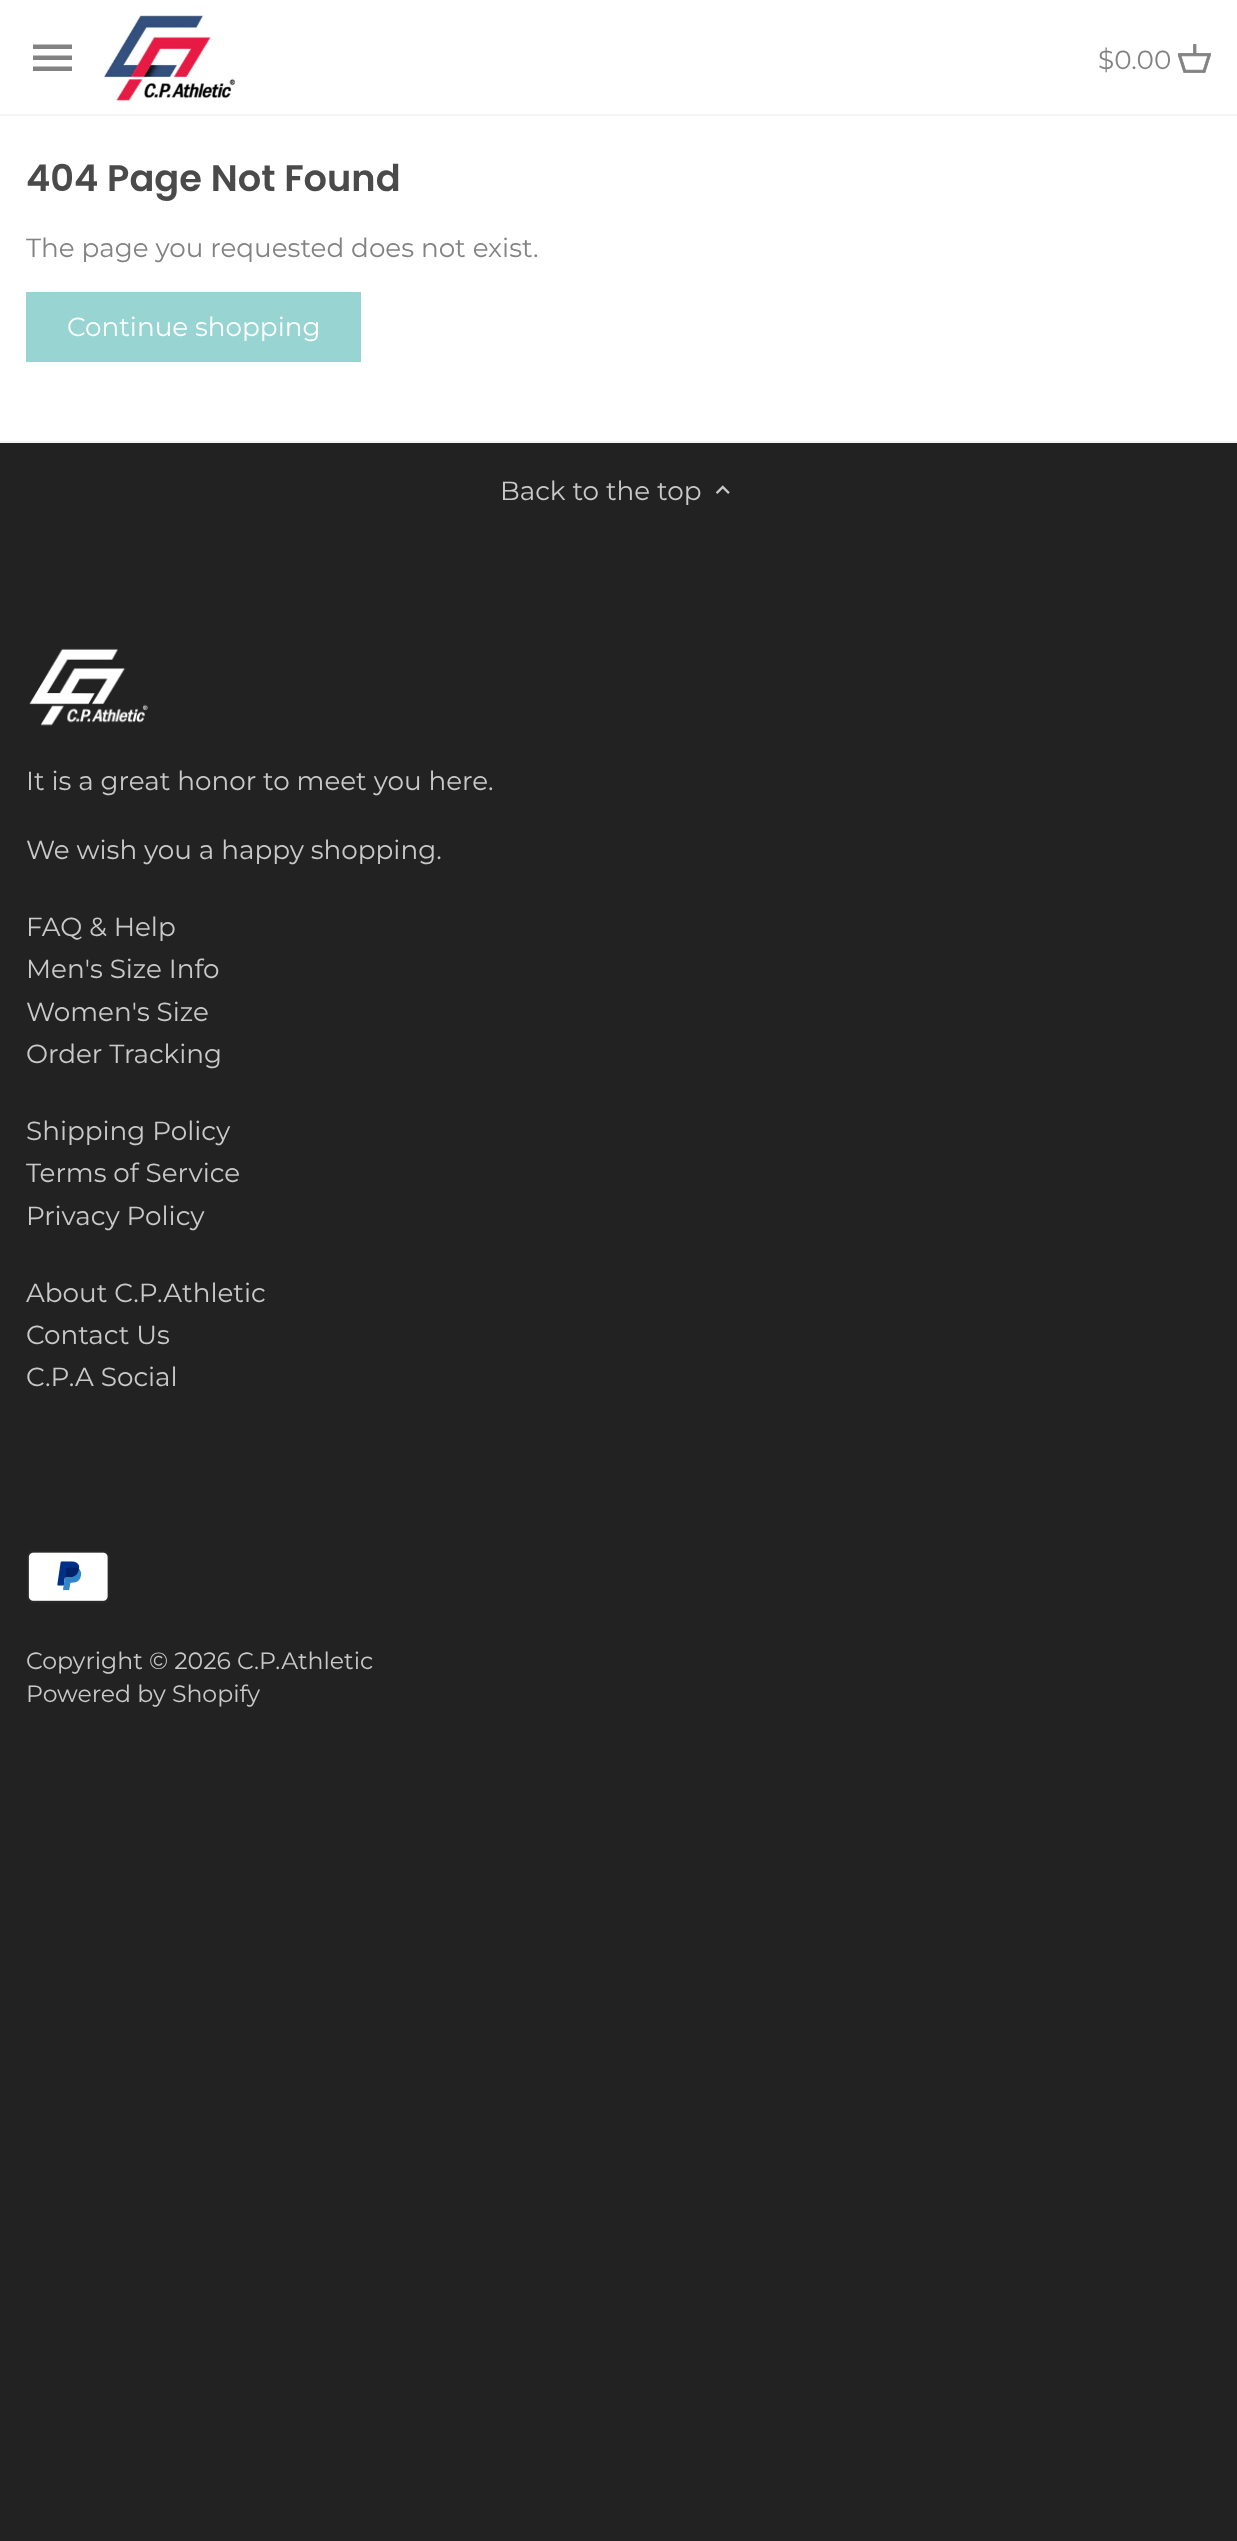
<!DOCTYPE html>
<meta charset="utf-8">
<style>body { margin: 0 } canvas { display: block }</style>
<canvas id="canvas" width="1237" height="2541"></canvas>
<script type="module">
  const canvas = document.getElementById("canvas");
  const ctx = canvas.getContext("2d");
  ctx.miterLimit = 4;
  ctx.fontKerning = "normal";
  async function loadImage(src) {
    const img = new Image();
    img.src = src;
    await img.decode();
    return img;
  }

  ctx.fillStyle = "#222222";
  ctx.fillRect(0, 0, 1237, 2541);
  ctx.fillStyle = "#ffffff";
  ctx.fillRect(0, 0, 1237, 441);
  ctx.fillStyle = "#f4f4f4";
  ctx.fillRect(0, 114, 1237, 2);
  ctx.fillStyle = "#828282";
  ctx.beginPath();
  ctx.moveTo(33, 71);
  ctx.lineTo(72, 71);
  ctx.lineTo(72, 66.5);
  ctx.lineTo(33, 66.5);
  ctx.closePath();
  ctx.moveTo(33, 60);
  ctx.lineTo(72, 60);
  ctx.lineTo(72, 55.5);
  ctx.lineTo(33, 55.5);
  ctx.closePath();
  ctx.moveTo(33, 44.5);
  ctx.lineTo(33, 49);
  ctx.lineTo(72, 49);
  ctx.lineTo(72, 44.5);
  ctx.closePath();
  ctx.fill();
  ctx.drawImage(await loadImage("img1.png"), 103, 14, 132, 88);
  ctx.font = "26.25px Montserrat";
  ctx.fillText("$0.00", 1098, 69);
  ctx.drawImage(await loadImage("img2.png"), 1178, 44, 33, 29);
  ctx.font = "600 36.75px Poppins";
  ctx.fillStyle = "#4a4a4a";
  ctx.fillText("404 Page Not Found", 26, 191);
  ctx.font = "26.25px Montserrat";
  ctx.fillStyle = "#828282";
  ctx.fillText("The page you requested does not exist.", 26, 257);
  ctx.fillStyle = "#98d4d2";
  ctx.fillRect(26, 292, 335, 70);
  ctx.fillStyle = "#ffffff";
  ctx.fillText("Continue shopping", 67, 336);
  ctx.fillStyle = "#f4f4f4";
  ctx.fillRect(0, 441, 1237, 2);
  ctx.fillStyle = "#c9c9c9";
  ctx.fillText("Back to the top", 500, 500);
  ctx.drawImage(await loadImage("img3.png"), 715, 485, 15, 9);
  ctx.drawImage(await loadImage("img4.png"), 29, 648, 119, 78);
  ctx.fillText("It is a great honor to meet you here.", 26, 790);
  ctx.fillText("We wish you a happy shopping.", 26, 859);
  ctx.fillText("FAQ & Help", 26, 936);
  ctx.fillText("Men's Size Info", 26, 978);
  ctx.fillText("Women's Size", 26, 1021);
  ctx.fillText("Order Tracking", 26, 1063);
  ctx.fillText("Shipping Policy", 26, 1140);
  ctx.fillText("Terms of Service", 26, 1182);
  ctx.fillText("Privacy Policy", 26, 1225);
  ctx.fillText("About C.P.Athletic", 26, 1302);
  ctx.fillText("Contact Us", 26, 1344);
  ctx.fillText("C.P.A Social", 26, 1386);
  ctx.drawImage(await loadImage("img5.png"), 27, 1551, 83, 52);
  ctx.font = "23.6px Montserrat";
  ctx.fillText("Copyright © 2026 C.P.Athletic", 26, 1669);
  ctx.fillText("Powered by Shopify", 26, 1702);
</script>
